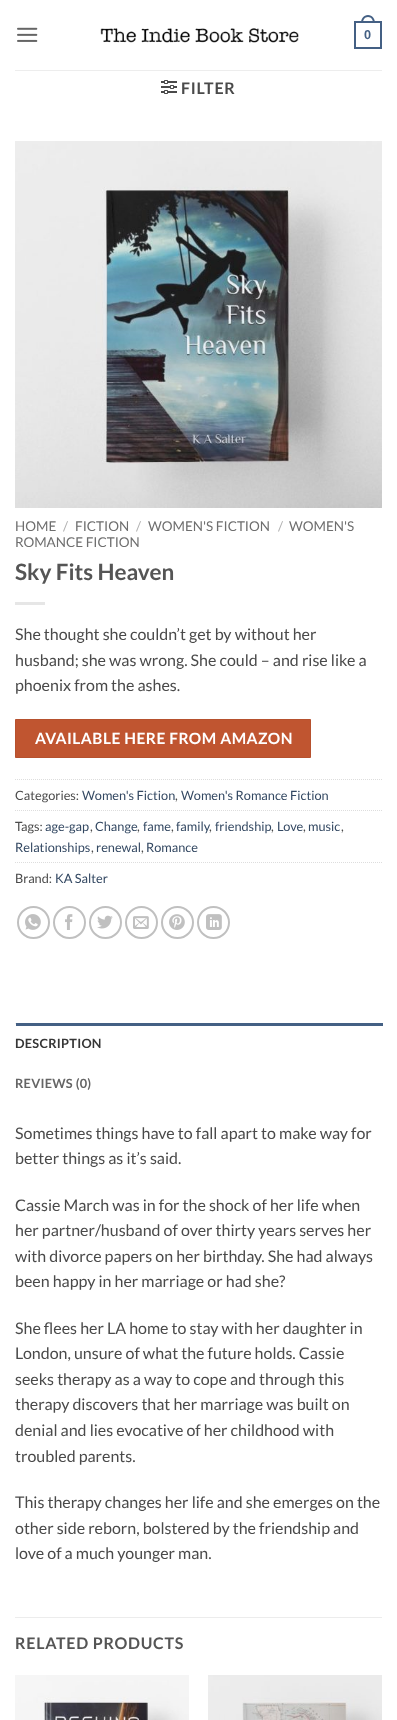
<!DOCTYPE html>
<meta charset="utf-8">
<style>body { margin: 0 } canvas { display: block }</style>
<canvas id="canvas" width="397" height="1720"></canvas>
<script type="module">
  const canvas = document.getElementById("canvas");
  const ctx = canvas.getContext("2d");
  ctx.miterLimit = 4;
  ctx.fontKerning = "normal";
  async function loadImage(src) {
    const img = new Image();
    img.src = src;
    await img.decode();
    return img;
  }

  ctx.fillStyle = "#ffffff";
  ctx.fillRect(0, 0, 397, 1720);
  ctx.drawImage(await loadImage("img1.png"), 17, 27, 21, 15);
  ctx.drawImage(await loadImage("img2.png"), 100, 28, 199, 15);
  ctx.strokeStyle = "#446084";
  ctx.lineWidth = 2;
  ctx.strokeRect(355, 22, 26, 26);
  ctx.fillStyle = "#446084";
  ctx.beginPath();
  ctx.moveTo(368, 15);
  ctx.bezierCurveTo(372.5, 15, 375, 19, 375, 23);
  ctx.lineTo(361, 23);
  ctx.bezierCurveTo(361, 19, 363.5, 15, 368, 15);
  ctx.closePath();
  ctx.moveTo(368, 17);
  ctx.bezierCurveTo(371.5, 17, 373, 20, 373, 23);
  ctx.lineTo(363, 23);
  ctx.bezierCurveTo(363, 20, 364.5, 17, 368, 17);
  ctx.closePath();
  ctx.fill("evenodd");
  ctx.font = "bold 12.75px Liberation Sans";
  ctx.fillText("0", 364, 39);
  ctx.fillStyle = "#ededed";
  ctx.fillRect(15, 70, 367, 1);
  ctx.drawImage(await loadImage("img3.png"), 161, 80, 16, 14);
  ctx.letterSpacing = "0.75px";
  ctx.font = "bold 16px Lato";
  ctx.fillStyle = "#4a4a4a";
  ctx.fillText("FILTER", 181, 94);
  ctx.drawImage(await loadImage("img4.png"), 15, 141, 367, 367);
  ctx.letterSpacing = "0px";
  ctx.font = "13.5px Lato";
  ctx.fillStyle = "#6e6e6e";
  ctx.fillText("HOME", 15, 531);
  ctx.fillStyle = "#b2b2b2";
  ctx.fillText("/", 63, 531);
  ctx.fillStyle = "#6e6e6e";
  ctx.fillText("FICTION", 75, 531);
  ctx.fillStyle = "#b2b2b2";
  ctx.fillText("/", 136, 531);
  ctx.fillStyle = "#6e6e6e";
  ctx.fillText("WOMEN'S FICTION", 148, 531);
  ctx.fillStyle = "#b2b2b2";
  ctx.fillText("/", 278, 531);
  ctx.fillStyle = "#6e6e6e";
  ctx.fillText("WOMEN'S", 289, 531);
  ctx.fillText("ROMANCE FICTION", 15, 547);
  ctx.font = "bold 22.5px Lato";
  ctx.fillStyle = "#555555";
  ctx.fillText("Sky Fits Heaven", 15, 580);
  ctx.fillStyle = "#e6e6e6";
  ctx.fillRect(15, 602, 30, 3);
  ctx.font = "16px Lato";
  ctx.fillStyle = "#4a4a4a";
  ctx.fillText("She thought she couldn’t get by without her", 15, 640);
  ctx.fillText("husband; she was wrong. She could – and rise like a", 15, 666);
  ctx.fillText("phoenix from the ashes.", 15, 691);
  ctx.fillStyle = "#c05530";
  ctx.beginPath();
  ctx.rect(15.5, 719.5, 295, 38);
  ctx.fill();
  ctx.strokeStyle = "#b6512e";
  ctx.lineWidth = 1;
  ctx.stroke();
  ctx.letterSpacing = "0.5px";
  ctx.font = "bold 15.5px Lato";
  ctx.fillStyle = "#ffffff";
  ctx.fillText("AVAILABLE HERE FROM AMAZON", 35, 744);
  ctx.beginPath();
  ctx.moveTo(15, 779.5);
  ctx.lineTo(382, 779.5);
  ctx.strokeStyle = "#dddddd";
  ctx.setLineDash([1, 1]);
  ctx.stroke();
  ctx.letterSpacing = "0px";
  ctx.font = "12.75px Lato";
  ctx.fillStyle = "#4a4a4a";
  ctx.fillText("Categories:", 15, 800);
  ctx.fillStyle = "#334862";
  ctx.fillText("Women's Fiction", 82, 800);
  ctx.fillStyle = "#4a4a4a";
  ctx.fillText(",", 175, 800);
  ctx.fillStyle = "#334862";
  ctx.fillText("Women's Romance Fiction", 181, 800);
  ctx.beginPath();
  ctx.moveTo(15, 810.5);
  ctx.lineTo(382, 810.5);
  ctx.stroke();
  ctx.fillStyle = "#4a4a4a";
  ctx.fillText("Tags:", 15, 831);
  ctx.fillStyle = "#334862";
  ctx.fillText("age-gap", 45, 831);
  ctx.fillStyle = "#4a4a4a";
  ctx.fillText(",", 90, 831);
  ctx.fillStyle = "#334862";
  ctx.fillText("Change", 95, 831);
  ctx.fillStyle = "#4a4a4a";
  ctx.fillText(",", 137, 831);
  ctx.fillStyle = "#334862";
  ctx.fillText("fame", 143, 831);
  ctx.fillStyle = "#4a4a4a";
  ctx.fillText(",", 171, 831);
  ctx.fillStyle = "#334862";
  ctx.fillText("family", 176, 831);
  ctx.fillText("friendship", 215, 831);
  ctx.fillText("Love", 277, 831);
  ctx.fillText("music", 308, 831);
  ctx.fillStyle = "#4a4a4a";
  ctx.fillText(",", 209, 831);
  ctx.fillText(",", 271, 831);
  ctx.fillText(",", 303, 831);
  ctx.fillText(",", 341, 831);
  ctx.fillStyle = "#334862";
  ctx.fillText("Relationships", 15, 852);
  ctx.fillStyle = "#4a4a4a";
  ctx.fillText(",", 91, 852);
  ctx.fillStyle = "#334862";
  ctx.fillText("renewal", 96, 852);
  ctx.fillStyle = "#4a4a4a";
  ctx.fillText(",", 141, 852);
  ctx.fillStyle = "#334862";
  ctx.fillText("Romance", 146, 852);
  ctx.beginPath();
  ctx.moveTo(15, 862.5);
  ctx.lineTo(382, 862.5);
  ctx.stroke();
  ctx.fillStyle = "#4a4a4a";
  ctx.fillText("Brand:", 15, 883);
  ctx.fillStyle = "#334862";
  ctx.fillText("KA Salter", 55, 883);
  ctx.beginPath();
  ctx.arc(33.5, 922.5, 15.5, 0, Math.PI * 2);
  ctx.strokeStyle = "#c0c0c0";
  ctx.lineWidth = 2;
  ctx.setLineDash([]);
  ctx.stroke();
  ctx.drawImage(await loadImage("img5.png"), 25, 914, 16, 16);
  ctx.beginPath();
  ctx.arc(69.5, 922.5, 15.5, 0, Math.PI * 2);
  ctx.stroke();
  ctx.drawImage(await loadImage("img6.png"), 65, 914, 8, 16);
  ctx.beginPath();
  ctx.arc(105.5, 922.5, 15.5, 0, Math.PI * 2);
  ctx.stroke();
  ctx.drawImage(await loadImage("img7.png"), 97, 915, 16, 14);
  ctx.beginPath();
  ctx.arc(141.5, 922.5, 15.5, 0, Math.PI * 2);
  ctx.stroke();
  ctx.drawImage(await loadImage("img8.png"), 133, 916, 16, 13);
  ctx.beginPath();
  ctx.arc(177.5, 922.5, 15.5, 0, Math.PI * 2);
  ctx.stroke();
  ctx.drawImage(await loadImage("img9.png"), 169, 914, 16, 16);
  ctx.beginPath();
  ctx.arc(213.5, 922.5, 15.5, 0, Math.PI * 2);
  ctx.stroke();
  ctx.drawImage(await loadImage("img10.png"), 206, 914, 16, 16);
  ctx.fillStyle = "#ececec";
  ctx.fillRect(15, 1023, 1, 1);
  ctx.fillStyle = "#446084";
  ctx.fillRect(16, 1023, 367, 3);
  ctx.letterSpacing = "0.25px";
  ctx.font = "bold 12.75px Lato";
  ctx.fillStyle = "#363636";
  ctx.fillText("DESCRIPTION", 15, 1048);
  ctx.fillStyle = "#656565";
  ctx.fillText("REVIEWS (0)", 15, 1088);
  ctx.letterSpacing = "0px";
  ctx.font = "16px Lato";
  ctx.fillStyle = "#4a4a4a";
  ctx.fillText("Sometimes things have to fall apart to make way for", 15, 1139);
  ctx.fillText("better things as it’s said.", 15, 1164);
  ctx.fillText("Cassie March was in for the shock of her life when", 15, 1211);
  ctx.fillText("her partner/husband of over thirty years serves her", 15, 1236);
  ctx.fillText("with divorce papers on her birthday. She had always", 15, 1262);
  ctx.fillText("been happy in her marriage or had she?", 15, 1287);
  ctx.fillText("She flees her LA home to stay with her daughter in", 15, 1334);
  ctx.fillText("London, unsure of what the future holds. Cassie", 15, 1359);
  ctx.fillText("seeks therapy as a way to cope and through this", 15, 1385);
  ctx.fillText("therapy discovers that her marriage was built on", 15, 1410);
  ctx.fillText("denial and lies evocative of her childhood with", 15, 1436);
  ctx.fillText("troubled parents.", 15, 1462);
  ctx.fillText("This therapy changes her life and she emerges on the", 15, 1508);
  ctx.fillText("other side reborn, bolstered by the friendship and", 15, 1534);
  ctx.fillText("love of a much younger man.", 15, 1559);
  ctx.fillStyle = "#ececec";
  ctx.fillRect(15, 1617, 367, 1);
  ctx.letterSpacing = "0.75px";
  ctx.font = "bold 16px Lato";
  ctx.fillStyle = "#555555";
  ctx.fillText("RELATED PRODUCTS", 15, 1649);
  ctx.drawImage(await loadImage("img11.png"), 15, 1675, 174, 45);
  ctx.drawImage(await loadImage("img12.png"), 208, 1675, 174, 45);
</script>
